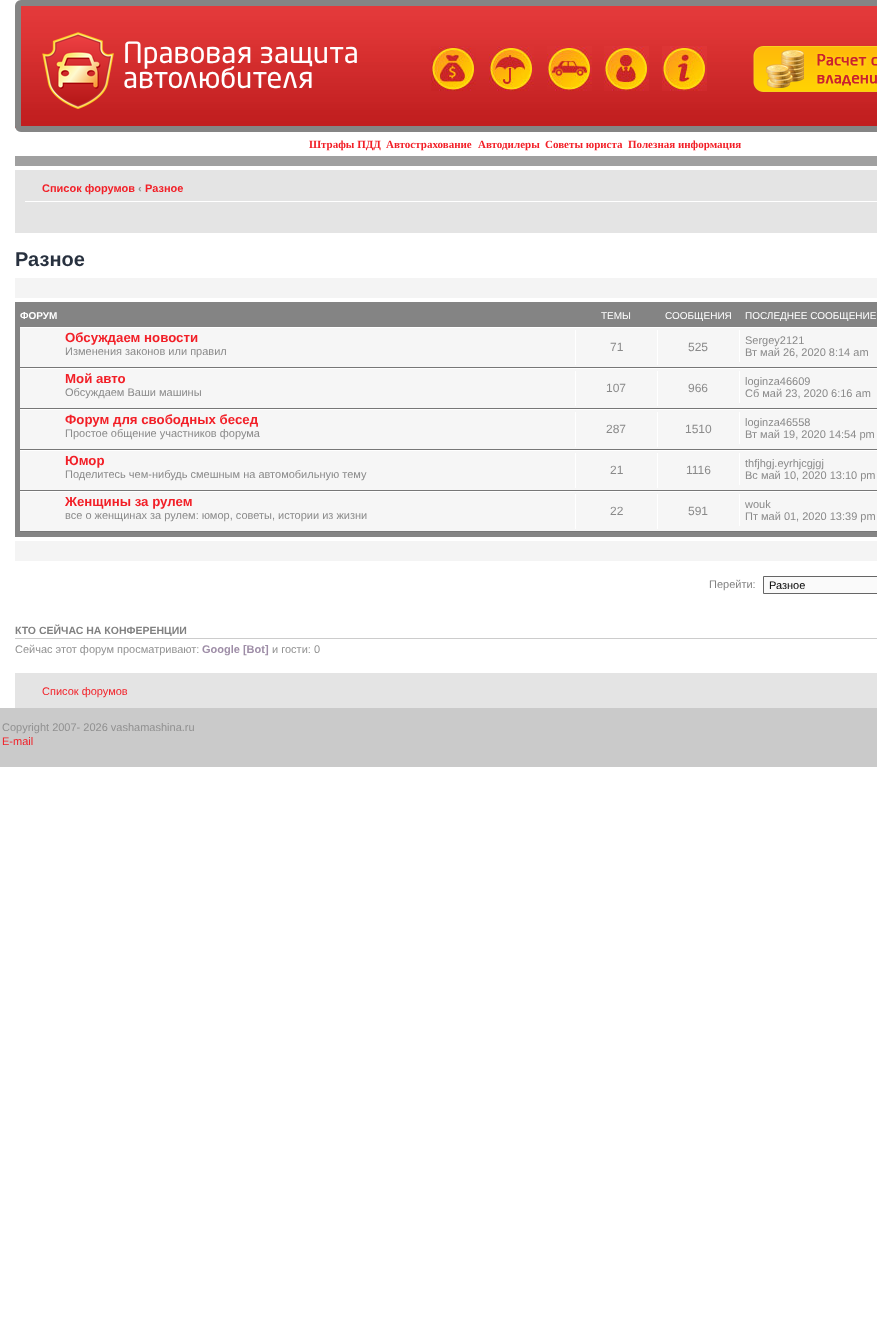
<!DOCTYPE html>
<meta charset="utf-8">
<style>body { margin: 0 } canvas { display: block }</style>
<canvas id="canvas" width="877" height="1325"></canvas>
<script type="module">
  const canvas = document.getElementById("canvas");
  const ctx = canvas.getContext("2d");
  ctx.miterLimit = 4;
  ctx.fontKerning = "normal";
  async function loadImage(src) {
    const img = new Image();
    img.src = src;
    await img.decode();
    return img;
  }

  ctx.fillStyle = "#ffffff";
  ctx.fillRect(0, 0, 877, 1325);
  ctx.fillStyle = "#cacaca";
  ctx.fillRect(0, 708, 877, 59);
  ctx.drawImage(await loadImage("img1.png"), 15, 6, 862, 126);
  ctx.beginPath();
  ctx.roundRect(18, 3, 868, 126, 3);
  ctx.strokeStyle = "#858585";
  ctx.lineWidth = 6;
  ctx.stroke();
  ctx.drawImage(await loadImage("img2.png"), 42, 32, 72, 77);
  ctx.font = "29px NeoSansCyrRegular";
  ctx.fillStyle = "#ffffff";
  ctx.fillText("Правовая защита", 123, 63);
  ctx.fillText("автолюбителя", 123, 88);
  ctx.drawImage(await loadImage("img3.png"), 431, 46, 45, 45);
  ctx.drawImage(await loadImage("img4.png"), 489, 46, 45, 45);
  ctx.drawImage(await loadImage("img5.png"), 547, 46, 45, 45);
  ctx.drawImage(await loadImage("img6.png"), 604, 46, 45, 45);
  ctx.drawImage(await loadImage("img7.png"), 662, 46, 45, 45);
  ctx.drawImage(await loadImage("img8.png"), 753, 46, 124, 46);
  ctx.font = "bold 11px Liberation Serif";
  ctx.fillStyle = "#f21f27";
  ctx.fillText("Штрафы ПДД", 309, 148);
  ctx.fillText("Автострахование", 386, 148);
  ctx.fillText("Автодилеры", 478, 148);
  ctx.fillText("Советы юриста", 545, 148);
  ctx.fillText("Полезная информация", 628, 148);
  ctx.fillStyle = "#a0a0a0";
  ctx.fillRect(15, 156, 862, 10);
  ctx.fillStyle = "#e4e4e4";
  ctx.fillRect(15, 170, 862, 63);
  ctx.fillStyle = "#ffffff";
  ctx.fillRect(25, 201, 852, 1);
  ctx.font = "bold 11px Liberation Sans";
  ctx.fillStyle = "#f21f27";
  ctx.fillText("Список форумов", 42, 192);
  ctx.fillStyle = "#919191";
  ctx.fillText("‹", 138, 192);
  ctx.fillStyle = "#f21f27";
  ctx.fillText("Разное", 145, 192);
  ctx.font = "bold 20px Liberation Sans";
  ctx.fillStyle = "#28313f";
  ctx.fillText("Разное", 15, 266);
  ctx.fillStyle = "#f4f4f4";
  ctx.fillRect(15, 278, 862, 20);
  ctx.fillStyle = "#848484";
  ctx.fillRect(15, 302, 862, 235);
  ctx.font = "bold 10px Liberation Sans";
  ctx.fillStyle = "#ffffff";
  ctx.fillText("ФОРУМ", 20, 319);
  ctx.font = "10px Liberation Sans";
  ctx.fillText("ТЕМЫ", 601, 319);
  ctx.fillText("СООБЩЕНИЯ", 665, 319);
  ctx.fillText("ПОСЛЕДНЕЕ СООБЩЕНИЕ", 745, 319);
  ctx.fillStyle = "#f6f6f6";
  ctx.fillRect(20, 328, 857, 203);
  ctx.fillStyle = "#ffffff";
  ctx.fillRect(20, 327, 857, 1);
  ctx.fillStyle = "#777777";
  ctx.fillRect(20, 367, 857, 1);
  ctx.font = "bold 13.25px Liberation Sans";
  ctx.fillStyle = "#f21f27";
  ctx.fillText("Обсуждаем новости", 65, 342);
  ctx.font = "11px Liberation Sans";
  ctx.fillStyle = "#8a8a8a";
  ctx.fillText("Изменения законов или правил", 65, 355);
  ctx.fillStyle = "#ffffff";
  ctx.fillRect(575, 330, 1, 35);
  ctx.font = "12px Liberation Sans";
  ctx.fillStyle = "#8a8a8a";
  ctx.fillText("71", 610, 351);
  ctx.fillStyle = "#ffffff";
  ctx.fillRect(657, 330, 1, 35);
  ctx.fillStyle = "#8a8a8a";
  ctx.fillText("525", 688, 351);
  ctx.fillStyle = "#ffffff";
  ctx.fillRect(739, 330, 1, 32);
  ctx.font = "11px Liberation Sans";
  ctx.fillStyle = "#8a8a8a";
  ctx.fillText("Sergey2121", 745, 344);
  ctx.fillText("Вт май 26, 2020 8:14 am", 745, 356);
  ctx.fillStyle = "#ffffff";
  ctx.fillRect(20, 368, 857, 1);
  ctx.fillStyle = "#777777";
  ctx.fillRect(20, 408, 857, 1);
  ctx.font = "bold 13.25px Liberation Sans";
  ctx.fillStyle = "#f21f27";
  ctx.fillText("Мой авто", 65, 383);
  ctx.font = "11px Liberation Sans";
  ctx.fillStyle = "#8a8a8a";
  ctx.fillText("Обсуждаем Ваши машины", 65, 396);
  ctx.fillStyle = "#ffffff";
  ctx.fillRect(575, 371, 1, 35);
  ctx.font = "12px Liberation Sans";
  ctx.fillStyle = "#8a8a8a";
  ctx.fillText("107", 606, 392);
  ctx.fillStyle = "#ffffff";
  ctx.fillRect(657, 371, 1, 35);
  ctx.fillStyle = "#8a8a8a";
  ctx.fillText("966", 688, 392);
  ctx.fillStyle = "#ffffff";
  ctx.fillRect(739, 371, 1, 32);
  ctx.font = "11px Liberation Sans";
  ctx.fillStyle = "#8a8a8a";
  ctx.fillText("loginza46609", 745, 385);
  ctx.fillText("Сб май 23, 2020 6:16 am", 745, 397);
  ctx.fillStyle = "#ffffff";
  ctx.fillRect(20, 409, 857, 1);
  ctx.fillStyle = "#777777";
  ctx.fillRect(20, 449, 857, 1);
  ctx.font = "bold 13.25px Liberation Sans";
  ctx.fillStyle = "#f21f27";
  ctx.fillText("Форум для свободных бесед", 65, 424);
  ctx.font = "11px Liberation Sans";
  ctx.fillStyle = "#8a8a8a";
  ctx.fillText("Простое общение участников форума", 65, 437);
  ctx.fillStyle = "#ffffff";
  ctx.fillRect(575, 412, 1, 35);
  ctx.font = "12px Liberation Sans";
  ctx.fillStyle = "#8a8a8a";
  ctx.fillText("287", 606, 433);
  ctx.fillStyle = "#ffffff";
  ctx.fillRect(657, 412, 1, 35);
  ctx.fillStyle = "#8a8a8a";
  ctx.fillText("1510", 685, 433);
  ctx.fillStyle = "#ffffff";
  ctx.fillRect(739, 412, 1, 32);
  ctx.font = "11px Liberation Sans";
  ctx.fillStyle = "#8a8a8a";
  ctx.fillText("loginza46558", 745, 426);
  ctx.fillText("Вт май 19, 2020 14:54 pm", 745, 438);
  ctx.fillStyle = "#ffffff";
  ctx.fillRect(20, 450, 857, 1);
  ctx.fillStyle = "#777777";
  ctx.fillRect(20, 490, 857, 1);
  ctx.font = "bold 13.25px Liberation Sans";
  ctx.fillStyle = "#f21f27";
  ctx.fillText("Юмор", 65, 465);
  ctx.font = "11px Liberation Sans";
  ctx.fillStyle = "#8a8a8a";
  ctx.fillText("Поделитесь чем-нибудь смешным на автомобильную тему", 65, 478);
  ctx.fillStyle = "#ffffff";
  ctx.fillRect(575, 453, 1, 35);
  ctx.font = "12px Liberation Sans";
  ctx.fillStyle = "#8a8a8a";
  ctx.fillText("21", 610, 474);
  ctx.fillStyle = "#ffffff";
  ctx.fillRect(657, 453, 1, 35);
  ctx.fillStyle = "#8a8a8a";
  ctx.fillText("1116", 686, 474);
  ctx.fillStyle = "#ffffff";
  ctx.fillRect(739, 453, 1, 32);
  ctx.font = "11px Liberation Sans";
  ctx.fillStyle = "#8a8a8a";
  ctx.fillText("thfjhgj.eyrhjcgjgj", 745, 467);
  ctx.fillText("Вс май 10, 2020 13:10 pm", 745, 479);
  ctx.fillStyle = "#ffffff";
  ctx.fillRect(20, 491, 857, 1);
  ctx.fillStyle = "#777777";
  ctx.fillRect(20, 531, 857, 1);
  ctx.font = "bold 13.25px Liberation Sans";
  ctx.fillStyle = "#f21f27";
  ctx.fillText("Женщины за рулем", 65, 506);
  ctx.font = "11px Liberation Sans";
  ctx.fillStyle = "#8a8a8a";
  ctx.fillText("все о женщинах за рулем: юмор, советы, истории из жизни", 65, 519);
  ctx.fillStyle = "#ffffff";
  ctx.fillRect(575, 494, 1, 35);
  ctx.font = "12px Liberation Sans";
  ctx.fillStyle = "#8a8a8a";
  ctx.fillText("22", 610, 515);
  ctx.fillStyle = "#ffffff";
  ctx.fillRect(657, 494, 1, 35);
  ctx.fillStyle = "#8a8a8a";
  ctx.fillText("591", 688, 515);
  ctx.fillStyle = "#ffffff";
  ctx.fillRect(739, 494, 1, 32);
  ctx.font = "11px Liberation Sans";
  ctx.fillStyle = "#8a8a8a";
  ctx.fillText("wouk", 745, 508);
  ctx.fillText("Пт май 01, 2020 13:39 pm", 745, 520);
  ctx.fillStyle = "#f4f4f4";
  ctx.fillRect(15, 541, 862, 20);
  ctx.fillStyle = "#818181";
  ctx.fillText("Перейти:", 709, 588);
  ctx.fillStyle = "#fafafa";
  ctx.beginPath();
  ctx.rect(763.5, 576.5, 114, 17);
  ctx.fill();
  ctx.strokeStyle = "#666666";
  ctx.lineWidth = 1;
  ctx.stroke();
  ctx.fillStyle = "#000000";
  ctx.fillText("Разное", 769, 589);
  ctx.fillStyle = "#cccccc";
  ctx.fillRect(15, 638, 862, 1);
  ctx.font = "bold 10.5px Liberation Sans";
  ctx.fillStyle = "#818181";
  ctx.fillText("КТО СЕЙЧАС НА КОНФЕРЕНЦИИ", 15, 634);
  ctx.font = "11px Liberation Sans";
  ctx.fillStyle = "#919191";
  ctx.fillText("Сейчас этот форум просматривают:", 15, 653);
  ctx.font = "bold 11px Liberation Sans";
  ctx.fillStyle = "#9e8da7";
  ctx.fillText("Google [Bot]", 202, 653);
  ctx.font = "11px Liberation Sans";
  ctx.fillStyle = "#919191";
  ctx.fillText("и гости: 0", 272, 653);
  ctx.fillStyle = "#e4e4e4";
  ctx.fillRect(15, 673, 862, 35);
  ctx.fillStyle = "#f21f27";
  ctx.fillText("Список форумов", 42, 695);
  ctx.fillStyle = "#919191";
  ctx.fillText("Copyright 2007- 2026 vashamashina.ru", 2, 731);
  ctx.fillStyle = "#f21f27";
  ctx.fillText("E-mail", 2, 745);
</script>
